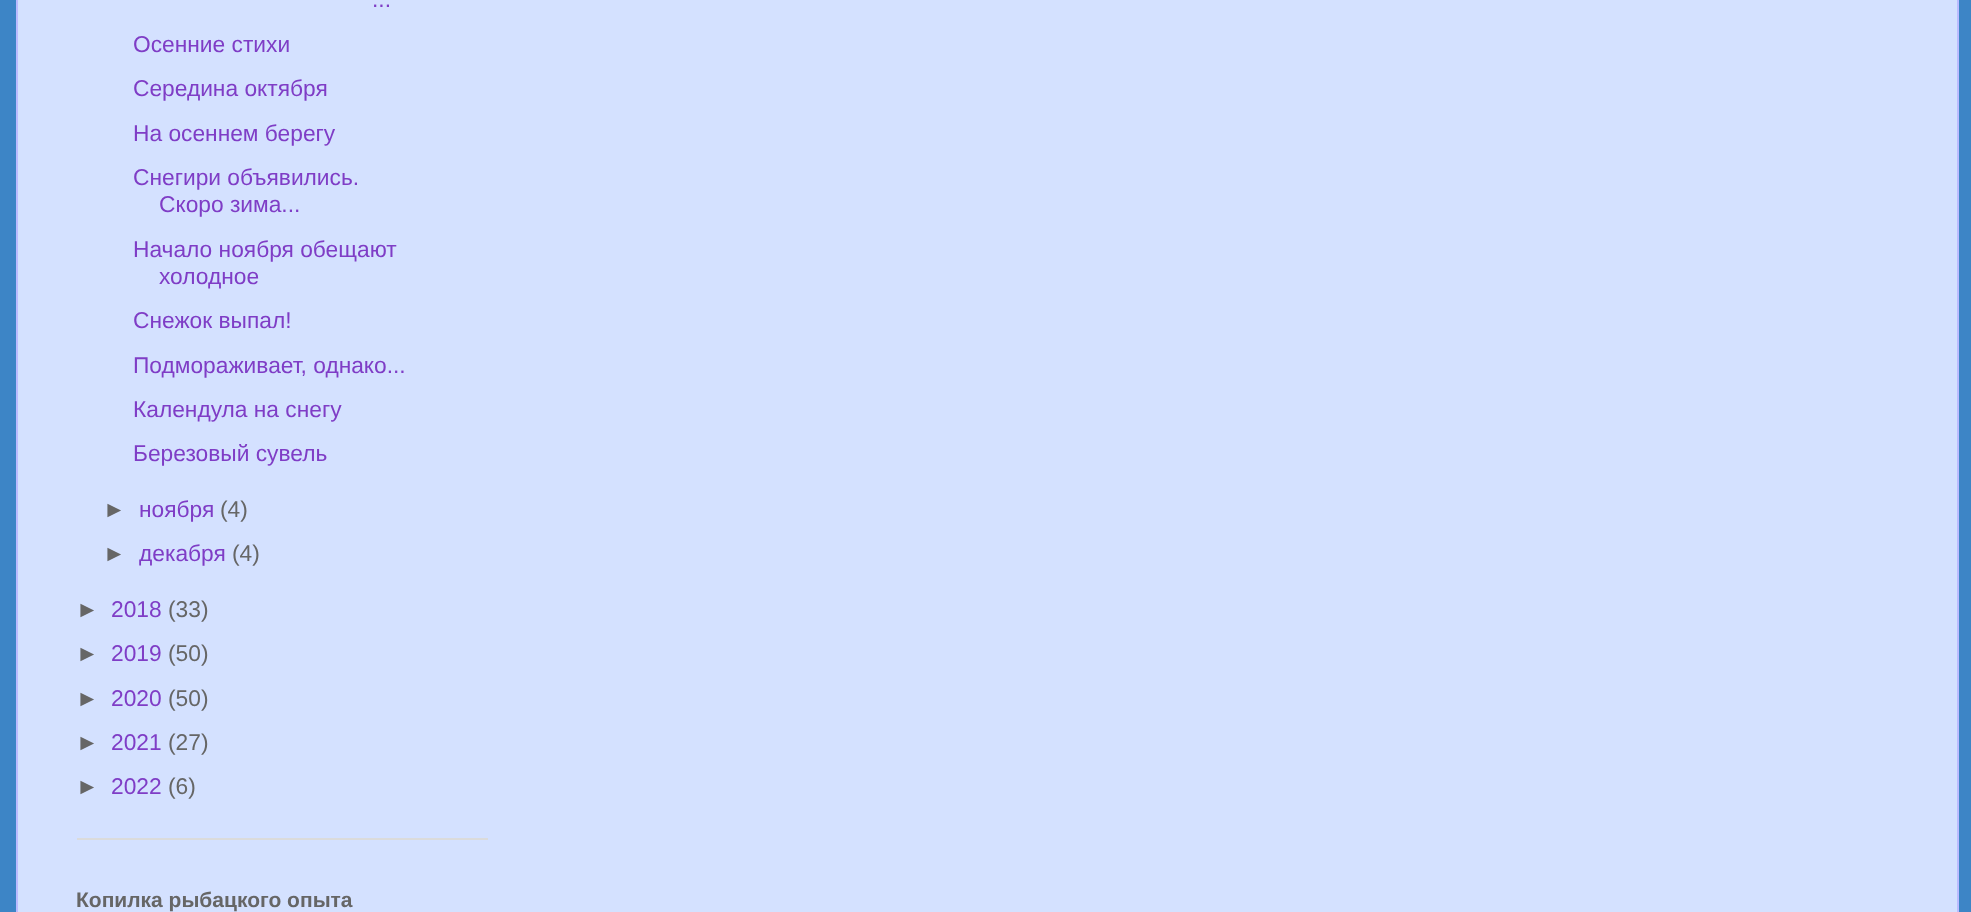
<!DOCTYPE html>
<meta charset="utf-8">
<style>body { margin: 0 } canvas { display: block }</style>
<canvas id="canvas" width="1971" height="912"></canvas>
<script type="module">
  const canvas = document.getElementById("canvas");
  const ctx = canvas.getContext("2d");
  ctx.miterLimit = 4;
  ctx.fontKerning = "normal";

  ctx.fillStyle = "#3d85c6";
  ctx.fillRect(0, 0, 1971, 912);
  ctx.fillStyle = "#d4e1ff";
  ctx.fillRect(18, 0, 1939, 912);
  ctx.fillStyle = "#bbbbff";
  ctx.fillRect(1957, 0, 2, 912);
  ctx.fillRect(16, 0, 2, 912);
  ctx.fillStyle = "#dbdbdb";
  ctx.fillRect(77, 838, 411, 2);
  ctx.font = "22.75px Liberation Sans";
  ctx.fillStyle = "#7f3dc6";
  ctx.fillText("...", 372, 7);
  ctx.fillText("Осенние стихи", 133, 52);
  ctx.fillText("Середина октября", 133, 96);
  ctx.fillText("На осеннем берегу", 133, 141);
  ctx.fillText("Снегири объявились.", 133, 185);
  ctx.fillText("Скоро зима...", 159, 212);
  ctx.fillText("Начало ноября обещают", 133, 257);
  ctx.fillText("холодное", 159, 284);
  ctx.fillText("Снежок выпал!", 133, 328);
  ctx.fillText("Подмораживает, однако...", 133, 373);
  ctx.fillText("Календула на снегу", 133, 417);
  ctx.fillText("Березовый сувель", 133, 461);
  ctx.fillStyle = "#666666";
  ctx.fillText("►", 103, 517);
  ctx.fillStyle = "#7f3dc6";
  ctx.fillText("ноября", 139, 517);
  ctx.fillStyle = "#666666";
  ctx.fillText("(4)", 220, 517);
  ctx.fillText("►", 103, 561);
  ctx.fillStyle = "#7f3dc6";
  ctx.fillText("декабря", 139, 561);
  ctx.fillStyle = "#666666";
  ctx.fillText("(4)", 232, 561);
  ctx.fillText("►", 76, 617);
  ctx.fillStyle = "#7f3dc6";
  ctx.fillText("2018", 111, 617);
  ctx.fillStyle = "#666666";
  ctx.fillText("(33)", 168, 617);
  ctx.fillText("►", 76, 661);
  ctx.fillStyle = "#7f3dc6";
  ctx.fillText("2019", 111, 661);
  ctx.fillStyle = "#666666";
  ctx.fillText("(50)", 168, 661);
  ctx.fillText("►", 76, 706);
  ctx.fillStyle = "#7f3dc6";
  ctx.fillText("2020", 111, 706);
  ctx.fillStyle = "#666666";
  ctx.fillText("(50)", 168, 706);
  ctx.fillText("►", 76, 750);
  ctx.fillStyle = "#7f3dc6";
  ctx.fillText("2021", 111, 750);
  ctx.fillStyle = "#666666";
  ctx.fillText("(27)", 168, 750);
  ctx.fillText("►", 76, 794);
  ctx.fillStyle = "#7f3dc6";
  ctx.fillText("2022", 111, 794);
  ctx.fillStyle = "#666666";
  ctx.fillText("(6)", 168, 794);
  ctx.font = "bold 21px Liberation Sans";
  ctx.fillText("Копилка рыбацкого опыта", 76, 907);
</script>
